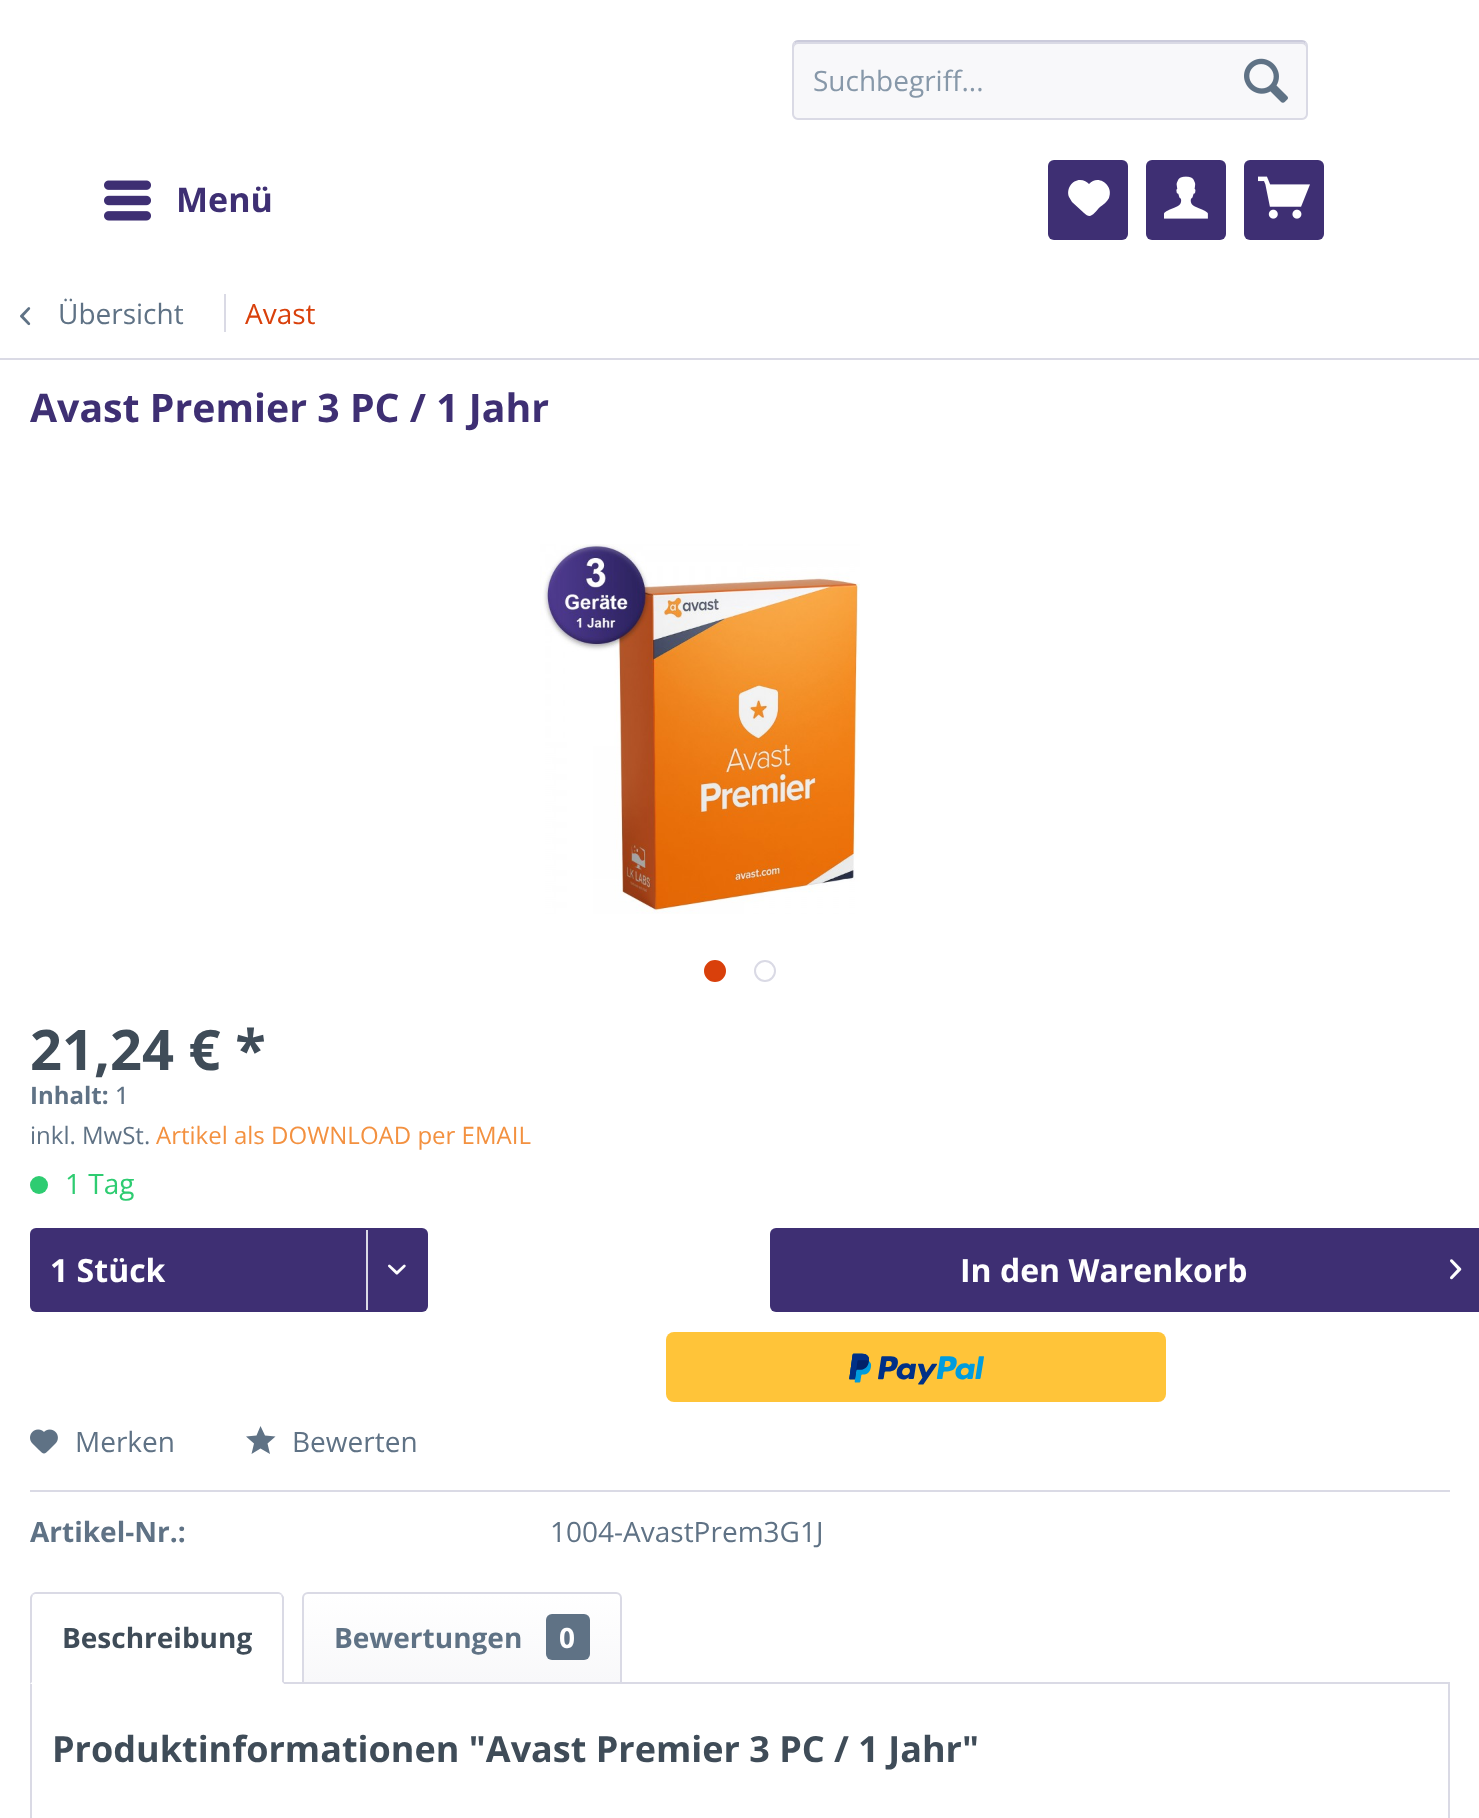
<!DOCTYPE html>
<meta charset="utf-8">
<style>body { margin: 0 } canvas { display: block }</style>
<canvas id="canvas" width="1479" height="1818"></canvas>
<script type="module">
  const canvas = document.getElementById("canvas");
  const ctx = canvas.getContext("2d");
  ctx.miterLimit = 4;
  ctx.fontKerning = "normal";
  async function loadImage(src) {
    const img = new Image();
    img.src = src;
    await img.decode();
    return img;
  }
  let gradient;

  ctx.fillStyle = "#ffffff";
  ctx.fillRect(0, 0, 1479, 1818);
  ctx.fillStyle = "#f8f8fa";
  ctx.beginPath();
  ctx.roundRect(792, 40, 516, 80, 6);
  ctx.fill();
  ctx.fillStyle = "#dadae5";
  ctx.beginPath();
  ctx.moveTo(798, 44);
  ctx.lineTo(1302, 44);
  ctx.bezierCurveTo(1304, 44, 1306, 46, 1306, 48);
  ctx.bezierCurveTo(1306, 45, 1306, 42, 1302, 42);
  ctx.lineTo(798, 42);
  ctx.bezierCurveTo(794, 42, 794, 45, 794, 48);
  ctx.bezierCurveTo(794, 46, 796, 44, 798, 44);
  ctx.closePath();
  ctx.fill();
  ctx.beginPath();
  ctx.moveTo(794.5, 42.5);
  ctx.bezierCurveTo(795.5, 41.5, 796.5, 41, 798, 41);
  ctx.lineTo(1302, 41);
  ctx.bezierCurveTo(1303.5, 41, 1304.5, 41.5, 1305.5, 42.5);
  ctx.strokeStyle = "#cbcbdb";
  ctx.lineWidth = 2;
  ctx.stroke();
  ctx.beginPath();
  ctx.moveTo(1305.5, 42.5);
  ctx.bezierCurveTo(1306.5, 43.5, 1307, 44.5, 1307, 46);
  ctx.lineTo(1307, 114);
  ctx.bezierCurveTo(1307, 115.5, 1306.5, 116.5, 1305.5, 117.5);
  ctx.bezierCurveTo(1304.5, 118.5, 1303.5, 119, 1302, 119);
  ctx.lineTo(798, 119);
  ctx.bezierCurveTo(796.5, 119, 795.5, 118.5, 794.5, 117.5);
  ctx.bezierCurveTo(793.5, 116.5, 793, 115.5, 793, 114);
  ctx.lineTo(793, 46);
  ctx.bezierCurveTo(793, 44.5, 793.5, 43.5, 794.5, 42.5);
  ctx.strokeStyle = "#dadae5";
  ctx.stroke();
  ctx.font = "28px Open Sans";
  ctx.fillStyle = "#8798a9";
  ctx.fillText("Suchbegriff...", 813, 91);
  ctx.drawImage(await loadImage("img1.png"), 1244, 58, 44, 45);
  ctx.drawImage(await loadImage("img2.png"), 104, 180, 47, 41);
  ctx.font = "bold 34px Open Sans";
  ctx.fillStyle = "#3e2f73";
  ctx.fillText("Menü", 176, 212);
  ctx.beginPath();
  ctx.roundRect(1048, 160, 80, 80, 6);
  ctx.fill();
  ctx.fillStyle = "#ffffff";
  ctx.beginPath();
  ctx.moveTo(1080, 180);
  ctx.bezierCurveTo(1072, 180, 1066, 189, 1069, 197);
  ctx.lineTo(1072, 202);
  ctx.lineTo(1084, 213);
  ctx.bezierCurveTo(1091, 220, 1094, 213, 1100, 207);
  ctx.bezierCurveTo(1103, 205, 1107, 202, 1109, 198);
  ctx.bezierCurveTo(1114, 185, 1098, 174, 1089, 184);
  ctx.bezierCurveTo(1087, 182, 1084, 180, 1080, 180);
  ctx.closePath();
  ctx.fill();
  ctx.fillStyle = "#3e2f73";
  ctx.beginPath();
  ctx.roundRect(1146, 160, 80, 80, 6);
  ctx.fill();
  ctx.drawImage(await loadImage("img3.png"), 1164, 176, 44, 43);
  ctx.beginPath();
  ctx.roundRect(1244, 160, 80, 80, 6);
  ctx.fill();
  ctx.drawImage(await loadImage("img4.png"), 1258, 176, 52, 43);
  ctx.fillStyle = "#dadae5";
  ctx.fillRect(0, 358, 1479, 2);
  ctx.drawImage(await loadImage("img5.png"), 20, 307, 11, 19);
  ctx.font = "28px Open Sans";
  ctx.fillStyle = "#5f7285";
  ctx.fillText("Übersicht", 58, 324);
  ctx.fillStyle = "#dadae5";
  ctx.fillRect(224, 294, 2, 38);
  ctx.fillStyle = "#d9400b";
  ctx.fillText("Avast", 245, 324);
  ctx.font = "bold 39.25px Open Sans";
  ctx.fillStyle = "#3e2f73";
  ctx.fillText("Avast Premier 3 PC / 1 Jahr", 30, 422);
  ctx.drawImage(await loadImage("img6.png"), 540, 544, 320, 370);
  ctx.fillStyle = "#d9400b";
  ctx.beginPath();
  ctx.arc(715, 971, 10, 0, Math.PI * 2);
  ctx.fill();
  ctx.strokeStyle = "#d9400b";
  ctx.stroke();
  ctx.beginPath();
  ctx.arc(765, 971, 10, 0, Math.PI * 2);
  ctx.strokeStyle = "#dadae5";
  ctx.stroke();
  ctx.font = "bold 56px Open Sans";
  ctx.fillStyle = "#3f4c58";
  ctx.fillText("21,24 € *", 30, 1070);
  ctx.font = "bold 24px Open Sans";
  ctx.fillStyle = "#5f7285";
  ctx.fillText("Inhalt:", 30, 1104);
  ctx.font = "500 24px Open Sans";
  ctx.fillText("1", 115, 1104);
  ctx.font = "24px Open Sans";
  ctx.fillText("inkl. MwSt.", 30, 1144);
  ctx.fillStyle = "#f39140";
  ctx.fillText("Artikel als DOWNLOAD per EMAIL", 156, 1144);
  ctx.fillStyle = "#2ecc71";
  ctx.beginPath();
  ctx.arc(39, 1185, 9, 0, Math.PI * 2);
  ctx.fill();
  ctx.font = "28px Open Sans";
  ctx.fillText("1 Tag", 65, 1194);
  ctx.fillStyle = "#3e2f73";
  ctx.beginPath();
  ctx.roundRect(30, 1228, 398, 84, 6);
  ctx.fill();
  ctx.font = "bold 32px Open Sans";
  ctx.fillStyle = "#ffffff";
  ctx.fillText("1 Stück", 50, 1282);
  ctx.fillStyle = "#dadae5";
  ctx.fillRect(366, 1230, 2, 80);
  ctx.drawImage(await loadImage("img7.png"), 388, 1264, 18, 11);
  ctx.fillStyle = "#3e2f73";
  ctx.beginPath();
  ctx.roundRect(770, 1228, 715, 84, 6);
  ctx.fill();
  ctx.fillStyle = "#ffffff";
  ctx.fillText("In den Warenkorb", 960, 1282);
  ctx.drawImage(await loadImage("img8.png"), 1450, 1259, 12, 21);
  ctx.drawImage(await loadImage("img9.png"), 666, 1332, 500, 70);
  ctx.fillStyle = "#dadae5";
  ctx.fillRect(30, 1490, 1420, 2);
  ctx.drawImage(await loadImage("img10.png"), 30, 1429, 28, 25);
  ctx.font = "28px Open Sans";
  ctx.fillStyle = "#5f7285";
  ctx.fillText("Merken", 75, 1452);
  ctx.fillText("Bewerten", 292, 1452);
  ctx.beginPath();
  ctx.moveTo(260.5, 1426);
  ctx.lineTo(256.5, 1435.5);
  ctx.lineTo(246, 1436.5);
  ctx.lineTo(254, 1443.5);
  ctx.lineTo(251.5, 1454);
  ctx.lineTo(260.5, 1448.5);
  ctx.lineTo(270, 1454);
  ctx.lineTo(267.5, 1443.5);
  ctx.lineTo(275.5, 1436.5);
  ctx.lineTo(265, 1435.5);
  ctx.closePath();
  ctx.fill();
  ctx.font = "bold 28px Open Sans";
  ctx.fillText("Artikel-Nr.:", 30, 1542);
  ctx.font = "28px Open Sans";
  ctx.fillText("1004-AvastPrem3G1J", 550, 1542);
  ctx.strokeRect(31, 1683, 1418, 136);
  ctx.fillStyle = "#ffffff";
  ctx.beginPath();
  ctx.roundRect(30, 1592, 254, 92, [6, 6, 0, 0]);
  ctx.fill();
  ctx.fillStyle = "#dadae5";
  ctx.beginPath();
  ctx.moveTo(36, 1592);
  ctx.bezierCurveTo(34, 1592, 33, 1593, 32, 1594);
  ctx.lineTo(33, 1595);
  ctx.bezierCurveTo(34, 1594, 35, 1594, 36, 1594);
  ctx.lineTo(278, 1594);
  ctx.bezierCurveTo(279, 1594, 280, 1594, 281, 1595);
  ctx.lineTo(282, 1594);
  ctx.bezierCurveTo(281, 1593, 280, 1592, 278, 1592);
  ctx.closePath();
  ctx.fill();
  ctx.beginPath();
  ctx.moveTo(284, 1684);
  ctx.lineTo(284, 1597);
  ctx.lineTo(282, 1594);
  ctx.lineTo(281, 1595);
  ctx.lineTo(282, 1598);
  ctx.lineTo(282, 1682);
  ctx.closePath();
  ctx.fill();
  ctx.fillStyle = "#ffffff";
  ctx.beginPath();
  ctx.moveTo(284, 1684);
  ctx.lineTo(282, 1682);
  ctx.lineTo(32, 1682);
  ctx.lineTo(30, 1684);
  ctx.closePath();
  ctx.fill();
  ctx.fillStyle = "#dadae5";
  ctx.beginPath();
  ctx.moveTo(30, 1684);
  ctx.lineTo(32, 1682);
  ctx.lineTo(32, 1598);
  ctx.lineTo(33, 1595);
  ctx.lineTo(32, 1594);
  ctx.bezierCurveTo(31, 1595, 30, 1596, 30, 1598);
  ctx.closePath();
  ctx.fill();
  ctx.font = "bold 28px Open Sans";
  ctx.fillStyle = "#3f4c58";
  ctx.fillText("Beschreibung", 62, 1648);
  gradient = ctx.createLinearGradient(462, 1594, 462, 1682);
  gradient.addColorStop(0, "#ffffff");
  gradient.addColorStop(1, "#f8f8fa");
  ctx.fillStyle = gradient;
  ctx.beginPath();
  ctx.roundRect(304, 1594, 316, 88, [4, 4, 0, 0]);
  ctx.fill();
  ctx.beginPath();
  ctx.roundRect(303, 1593, 318, 90, [5, 5, 0, 0]);
  ctx.stroke();
  ctx.fillStyle = "#5f7285";
  ctx.fillText("Bewertungen", 334, 1648);
  ctx.beginPath();
  ctx.roundRect(546, 1614, 44, 46, 6);
  ctx.fill();
  ctx.fillStyle = "#ffffff";
  ctx.fillText("0", 559, 1648);
  ctx.font = "bold 36px Open Sans";
  ctx.fillStyle = "#3f4c58";
  ctx.fillText("Produktinformationen \"Avast Premier 3 PC / 1 Jahr\"", 52, 1762);
</script>
